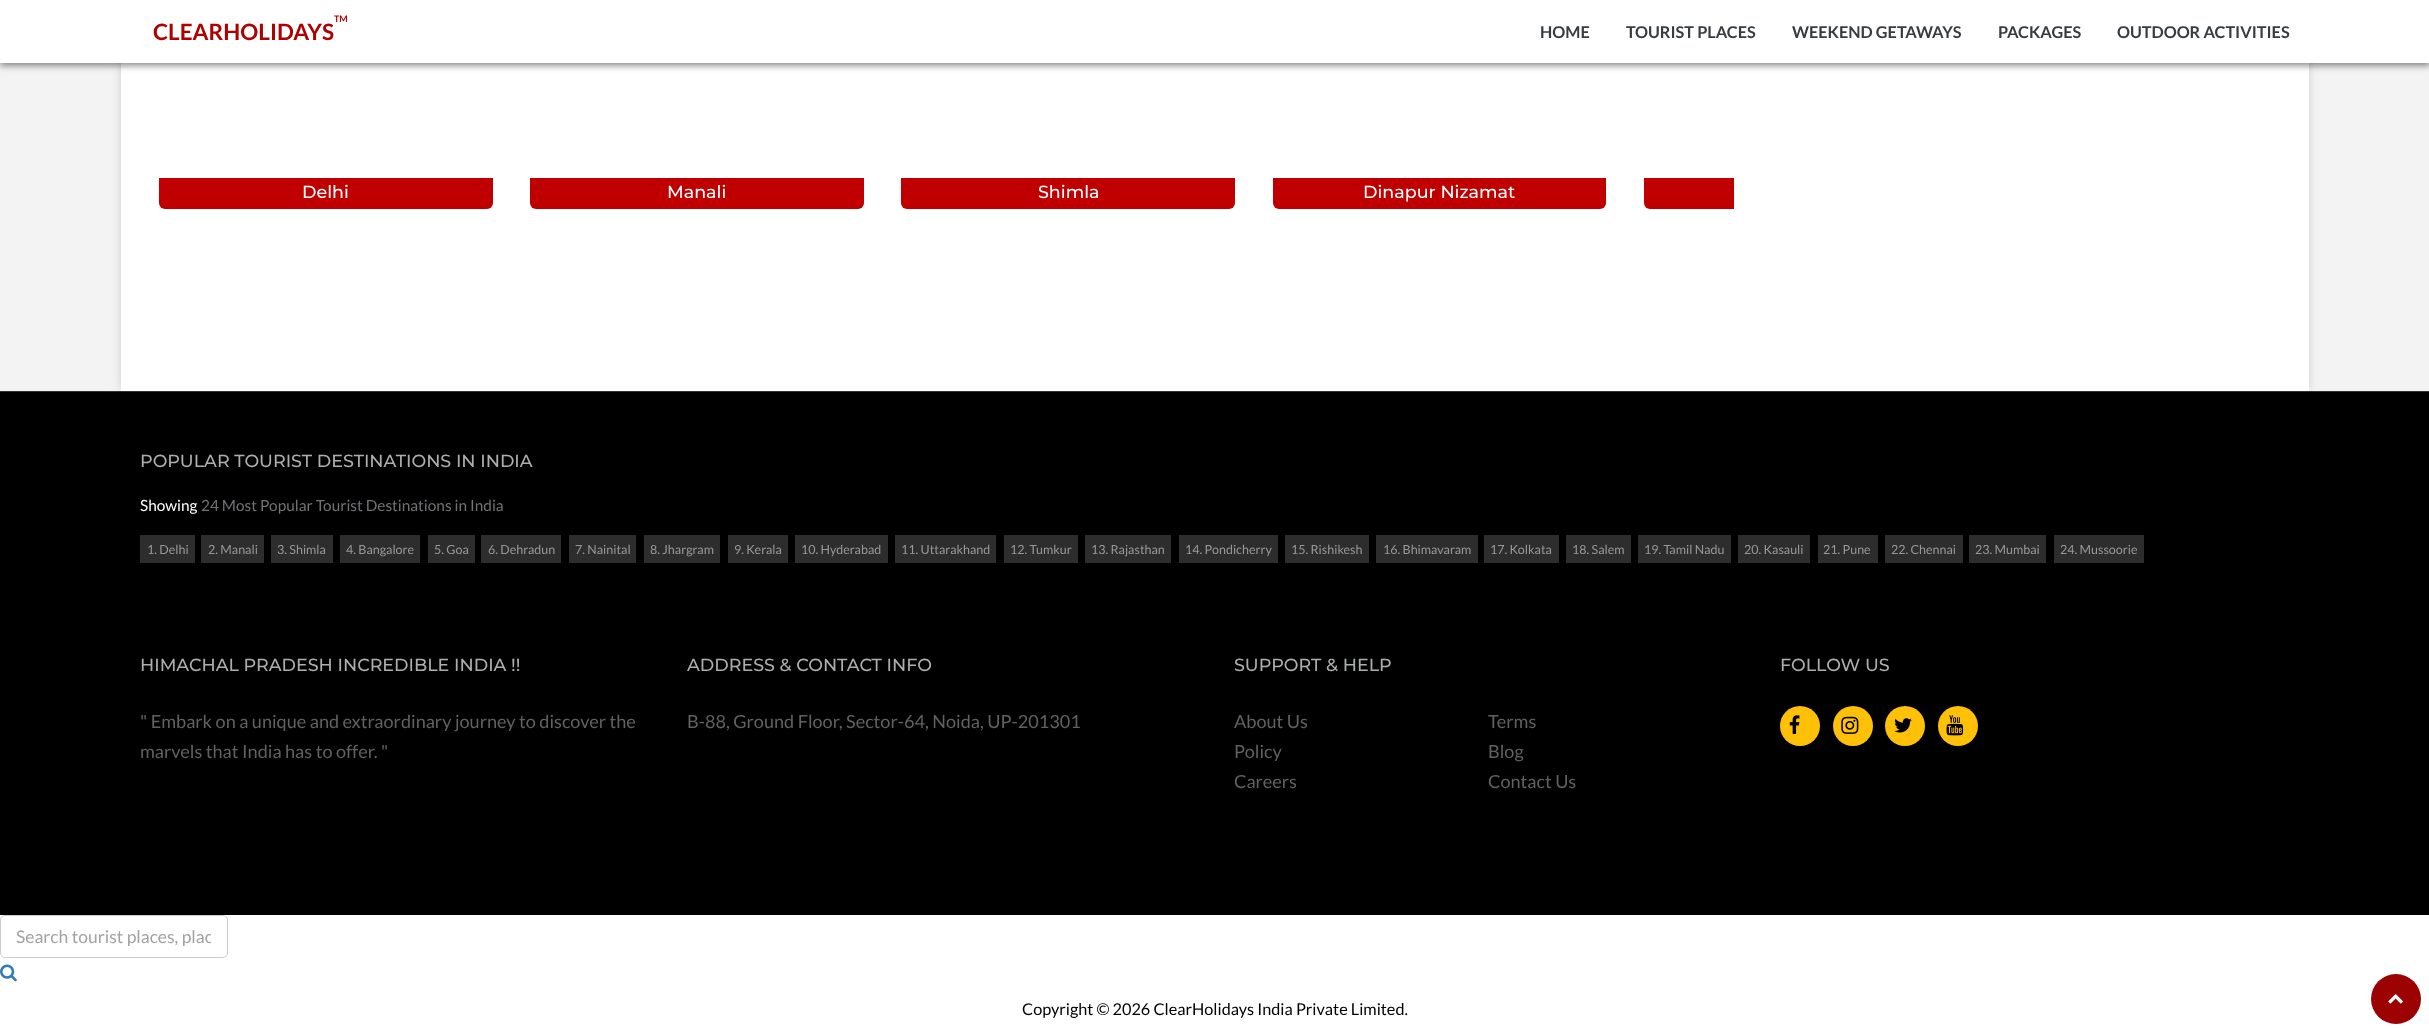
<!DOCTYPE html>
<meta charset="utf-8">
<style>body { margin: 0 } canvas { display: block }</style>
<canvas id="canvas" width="2429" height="1029"></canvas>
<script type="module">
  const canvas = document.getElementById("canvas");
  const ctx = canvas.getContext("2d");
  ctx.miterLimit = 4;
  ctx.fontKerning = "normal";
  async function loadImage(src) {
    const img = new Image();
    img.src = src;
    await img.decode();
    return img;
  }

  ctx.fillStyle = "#ffffff";
  ctx.fillRect(0, 0, 2429, 1029);
  ctx.fillStyle = "#f3f3f3";
  ctx.fillRect(0, 63, 2429, 328);
  ctx.fillStyle = "#000000";
  ctx.fillRect(0, 392, 2429, 523);
  ctx.fillStyle = "#333333";
  ctx.fillRect(0, 391, 2429, 1);
  ctx.save();
  ctx.beginPath();
  ctx.rect(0, 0, 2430, 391);
  ctx.clip();
  ctx.fillStyle = "rgba(150, 150, 150, 0.4)";
  ctx.filter = "blur(4.5px)";
  ctx.beginPath();
  ctx.rect(121, -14, 2188, 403);
  ctx.fill();
  ctx.filter = "none";
  ctx.restore();
  ctx.fillStyle = "#ffffff";
  ctx.fillRect(121, 63, 2188, 328);
  ctx.fillStyle = "rgba(0, 0, 0, 0.43)";
  ctx.filter = "blur(3px)";
  ctx.beginPath();
  ctx.rect(0, 4, 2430, 62);
  ctx.fill();
  ctx.filter = "none";
  ctx.fillStyle = "#ffffff";
  ctx.fillRect(0, 0, 2429, 63);
  ctx.font = "bold 9px Lato";
  ctx.fillStyle = "#ac0202";
  ctx.fillText("TM", 334, 22);
  ctx.font = "bold 22.5px Lato";
  ctx.fillText("CLEARHOLIDAYS", 153, 40);
  ctx.font = "bold 16.25px Lato";
  ctx.fillStyle = "#363c42";
  ctx.fillText("HOME", 1540, 38);
  ctx.fillText("TOURIST PLACES", 1626, 38);
  ctx.fillText("WEEKEND GETAWAYS", 1792, 38);
  ctx.fillText("PACKAGES", 1998, 38);
  ctx.fillText("OUTDOOR ACTIVITIES", 2117, 38);
  ctx.fillStyle = "#c00000";
  ctx.beginPath();
  ctx.roundRect(159, 178, 334, 31, [0, 0, 6, 6]);
  ctx.fill();
  ctx.font = "500 17.5px Montserrat";
  ctx.fillStyle = "#ffffff";
  ctx.fillText("Delhi", 302, 198);
  ctx.fillStyle = "#c00000";
  ctx.beginPath();
  ctx.roundRect(530, 178, 334, 31, [0, 0, 6, 6]);
  ctx.fill();
  ctx.fillStyle = "#ffffff";
  ctx.fillText("Manali", 667, 198);
  ctx.fillStyle = "#c00000";
  ctx.beginPath();
  ctx.roundRect(901, 178, 334, 31, [0, 0, 6, 6]);
  ctx.fill();
  ctx.fillStyle = "#ffffff";
  ctx.fillText("Shimla", 1038, 198);
  ctx.fillStyle = "#c00000";
  ctx.beginPath();
  ctx.roundRect(1273, 178, 333, 31, [0, 0, 6, 6]);
  ctx.fill();
  ctx.fillStyle = "#ffffff";
  ctx.fillText("Dinapur Nizamat", 1363, 198);
  ctx.fillStyle = "#c00000";
  ctx.beginPath();
  ctx.roundRect(1644, 178, 90, 31, [0, 0, 0, 6]);
  ctx.fill();
  ctx.fillStyle = "#acadaf";
  ctx.fillText("POPULAR TOURIST DESTINATIONS IN INDIA", 140, 467);
  ctx.font = "15.4px Lato";
  ctx.fillStyle = "#ffffff";
  ctx.fillText("Showing", 140, 511);
  ctx.fillStyle = "#707275";
  ctx.fillText("24 Most Popular Tourist Destinations in India", 201, 511);
  ctx.fillStyle = "#2d2d2d";
  ctx.fillRect(140, 535, 55, 28);
  ctx.font = "12.5px Lato";
  ctx.fillStyle = "#989898";
  ctx.fillText("1. Delhi", 147, 554);
  ctx.fillStyle = "#2d2d2d";
  ctx.fillRect(201, 535, 63, 28);
  ctx.fillStyle = "#989898";
  ctx.fillText("2. Manali", 208, 554);
  ctx.fillStyle = "#2d2d2d";
  ctx.fillRect(271, 535, 62, 28);
  ctx.fillStyle = "#989898";
  ctx.fillText("3. Shimla", 277, 554);
  ctx.fillStyle = "#2d2d2d";
  ctx.fillRect(340, 535, 80, 28);
  ctx.fillStyle = "#989898";
  ctx.fillText("4. Bangalore", 346, 554);
  ctx.fillStyle = "#2d2d2d";
  ctx.fillRect(428, 535, 47, 28);
  ctx.fillStyle = "#989898";
  ctx.fillText("5. Goa", 434, 554);
  ctx.fillStyle = "#2d2d2d";
  ctx.fillRect(481, 535, 80, 28);
  ctx.fillStyle = "#989898";
  ctx.fillText("6. Dehradun", 488, 554);
  ctx.fillStyle = "#2d2d2d";
  ctx.fillRect(569, 535, 67, 28);
  ctx.fillStyle = "#989898";
  ctx.fillText("7. Nainital", 575, 554);
  ctx.fillStyle = "#2d2d2d";
  ctx.fillRect(644, 535, 76, 28);
  ctx.fillStyle = "#989898";
  ctx.fillText("8. Jhargram", 650, 554);
  ctx.fillStyle = "#2d2d2d";
  ctx.fillRect(728, 535, 60, 28);
  ctx.fillStyle = "#989898";
  ctx.fillText("9. Kerala", 734, 554);
  ctx.fillStyle = "#2d2d2d";
  ctx.fillRect(795, 535, 93, 28);
  ctx.fillStyle = "#989898";
  ctx.fillText("10. Hyderabad", 801, 554);
  ctx.fillStyle = "#2d2d2d";
  ctx.fillRect(895, 535, 101, 28);
  ctx.fillStyle = "#989898";
  ctx.fillText("11. Uttarakhand", 901, 554);
  ctx.fillStyle = "#2d2d2d";
  ctx.fillRect(1004, 535, 74, 28);
  ctx.fillStyle = "#989898";
  ctx.fillText("12. Tumkur", 1010, 554);
  ctx.fillStyle = "#2d2d2d";
  ctx.fillRect(1085, 535, 86, 28);
  ctx.fillStyle = "#989898";
  ctx.fillText("13. Rajasthan", 1091, 554);
  ctx.fillStyle = "#2d2d2d";
  ctx.fillRect(1179, 535, 99, 28);
  ctx.fillStyle = "#989898";
  ctx.fillText("14. Pondicherry", 1185, 554);
  ctx.fillStyle = "#2d2d2d";
  ctx.fillRect(1285, 535, 84, 28);
  ctx.fillStyle = "#989898";
  ctx.fillText("15. Rishikesh", 1291, 554);
  ctx.fillStyle = "#2d2d2d";
  ctx.fillRect(1376, 535, 102, 28);
  ctx.fillStyle = "#989898";
  ctx.fillText("16. Bhimavaram", 1383, 554);
  ctx.fillStyle = "#2d2d2d";
  ctx.fillRect(1484, 535, 75, 28);
  ctx.fillStyle = "#989898";
  ctx.fillText("17. Kolkata", 1490, 554);
  ctx.fillStyle = "#2d2d2d";
  ctx.fillRect(1566, 535, 65, 28);
  ctx.fillStyle = "#989898";
  ctx.fillText("18. Salem", 1572, 554);
  ctx.fillStyle = "#2d2d2d";
  ctx.fillRect(1638, 535, 93, 28);
  ctx.fillStyle = "#989898";
  ctx.fillText("19. Tamil Nadu", 1644, 554);
  ctx.fillStyle = "#2d2d2d";
  ctx.fillRect(1738, 535, 72, 28);
  ctx.fillStyle = "#989898";
  ctx.fillText("20. Kasauli", 1744, 554);
  ctx.fillStyle = "#2d2d2d";
  ctx.fillRect(1818, 535, 60, 28);
  ctx.fillStyle = "#989898";
  ctx.fillText("21. Pune", 1823, 554);
  ctx.fillStyle = "#2d2d2d";
  ctx.fillRect(1885, 535, 78, 28);
  ctx.fillStyle = "#989898";
  ctx.fillText("22. Chennai", 1891, 554);
  ctx.fillStyle = "#2d2d2d";
  ctx.fillRect(1969, 535, 77, 28);
  ctx.fillStyle = "#989898";
  ctx.fillText("23. Mumbai", 1975, 554);
  ctx.fillStyle = "#2d2d2d";
  ctx.fillRect(2054, 535, 90, 28);
  ctx.fillStyle = "#989898";
  ctx.fillText("24. Mussoorie", 2060, 554);
  ctx.font = "500 17.5px Montserrat";
  ctx.fillStyle = "#acadaf";
  ctx.fillText("HIMACHAL PRADESH INCREDIBLE INDIA !!", 140, 671);
  ctx.font = "18.1px Lato";
  ctx.fillStyle = "#616161";
  ctx.fillText("\" Embark on a unique and extraordinary journey to discover the", 140, 728);
  ctx.fillText("marvels that India has to offer. \"", 140, 758);
  ctx.font = "500 17.5px Montserrat";
  ctx.fillStyle = "#acadaf";
  ctx.fillText("ADDRESS & CONTACT INFO", 687, 671);
  ctx.font = "18.1px Lato";
  ctx.fillStyle = "#616161";
  ctx.fillText("B-88, Ground Floor, Sector-64, Noida, UP-201301", 687, 728);
  ctx.font = "500 17.5px Montserrat";
  ctx.fillStyle = "#acadaf";
  ctx.fillText("SUPPORT & HELP", 1234, 671);
  ctx.font = "18.1px Lato";
  ctx.fillStyle = "#616161";
  ctx.fillText("About Us", 1234, 728);
  ctx.fillText("Terms", 1488, 728);
  ctx.fillText("Policy", 1234, 758);
  ctx.fillText("Blog", 1488, 758);
  ctx.fillText("Careers", 1234, 788);
  ctx.fillText("Contact Us", 1488, 788);
  ctx.font = "500 17.5px Montserrat";
  ctx.fillStyle = "#acadaf";
  ctx.fillText("FOLLOW US", 1780, 671);
  ctx.fillStyle = "#ffc107";
  ctx.beginPath();
  ctx.arc(1800, 726, 20, 0, Math.PI * 2);
  ctx.fill();
  ctx.drawImage(await loadImage("img1.png"), 1789, 715, 11, 19);
  ctx.beginPath();
  ctx.arc(1853, 726, 20, 0, Math.PI * 2);
  ctx.fill();
  ctx.drawImage(await loadImage("img2.png"), 1841, 716, 18, 18);
  ctx.beginPath();
  ctx.arc(1905, 726, 20, 0, Math.PI * 2);
  ctx.fill();
  ctx.drawImage(await loadImage("img3.png"), 1894, 718, 18, 15);
  ctx.beginPath();
  ctx.arc(1958, 726, 20, 0, Math.PI * 2);
  ctx.fill();
  ctx.drawImage(await loadImage("img4.png"), 1946, 715, 18, 21);
  ctx.beginPath();
  ctx.roundRect(0.5, 915.5, 227, 42, 4.5);
  ctx.strokeStyle = "#cccccc";
  ctx.stroke();
  ctx.save();
  ctx.beginPath();
  ctx.rect(16, 925, 195, 21);
  ctx.clip();
  ctx.font = "17.5px Lato";
  ctx.fillStyle = "#a2a2a2";
  ctx.fillText("Search tourist places, plac", 16, 943);
  ctx.restore();
  ctx.drawImage(await loadImage("img5.png"), 0, 964, 17, 18);
  ctx.font = "16.25px Lato";
  ctx.fillStyle = "#000000";
  ctx.fillText("Copyright © 2026 ClearHolidays India Private Limited.", 1022, 1015);
  ctx.fillStyle = "#9c0202";
  ctx.beginPath();
  ctx.arc(2396, 999, 25, 0, Math.PI * 2);
  ctx.fill();
  ctx.drawImage(await loadImage("img6.png"), 2388, 994, 15, 10);
</script>
